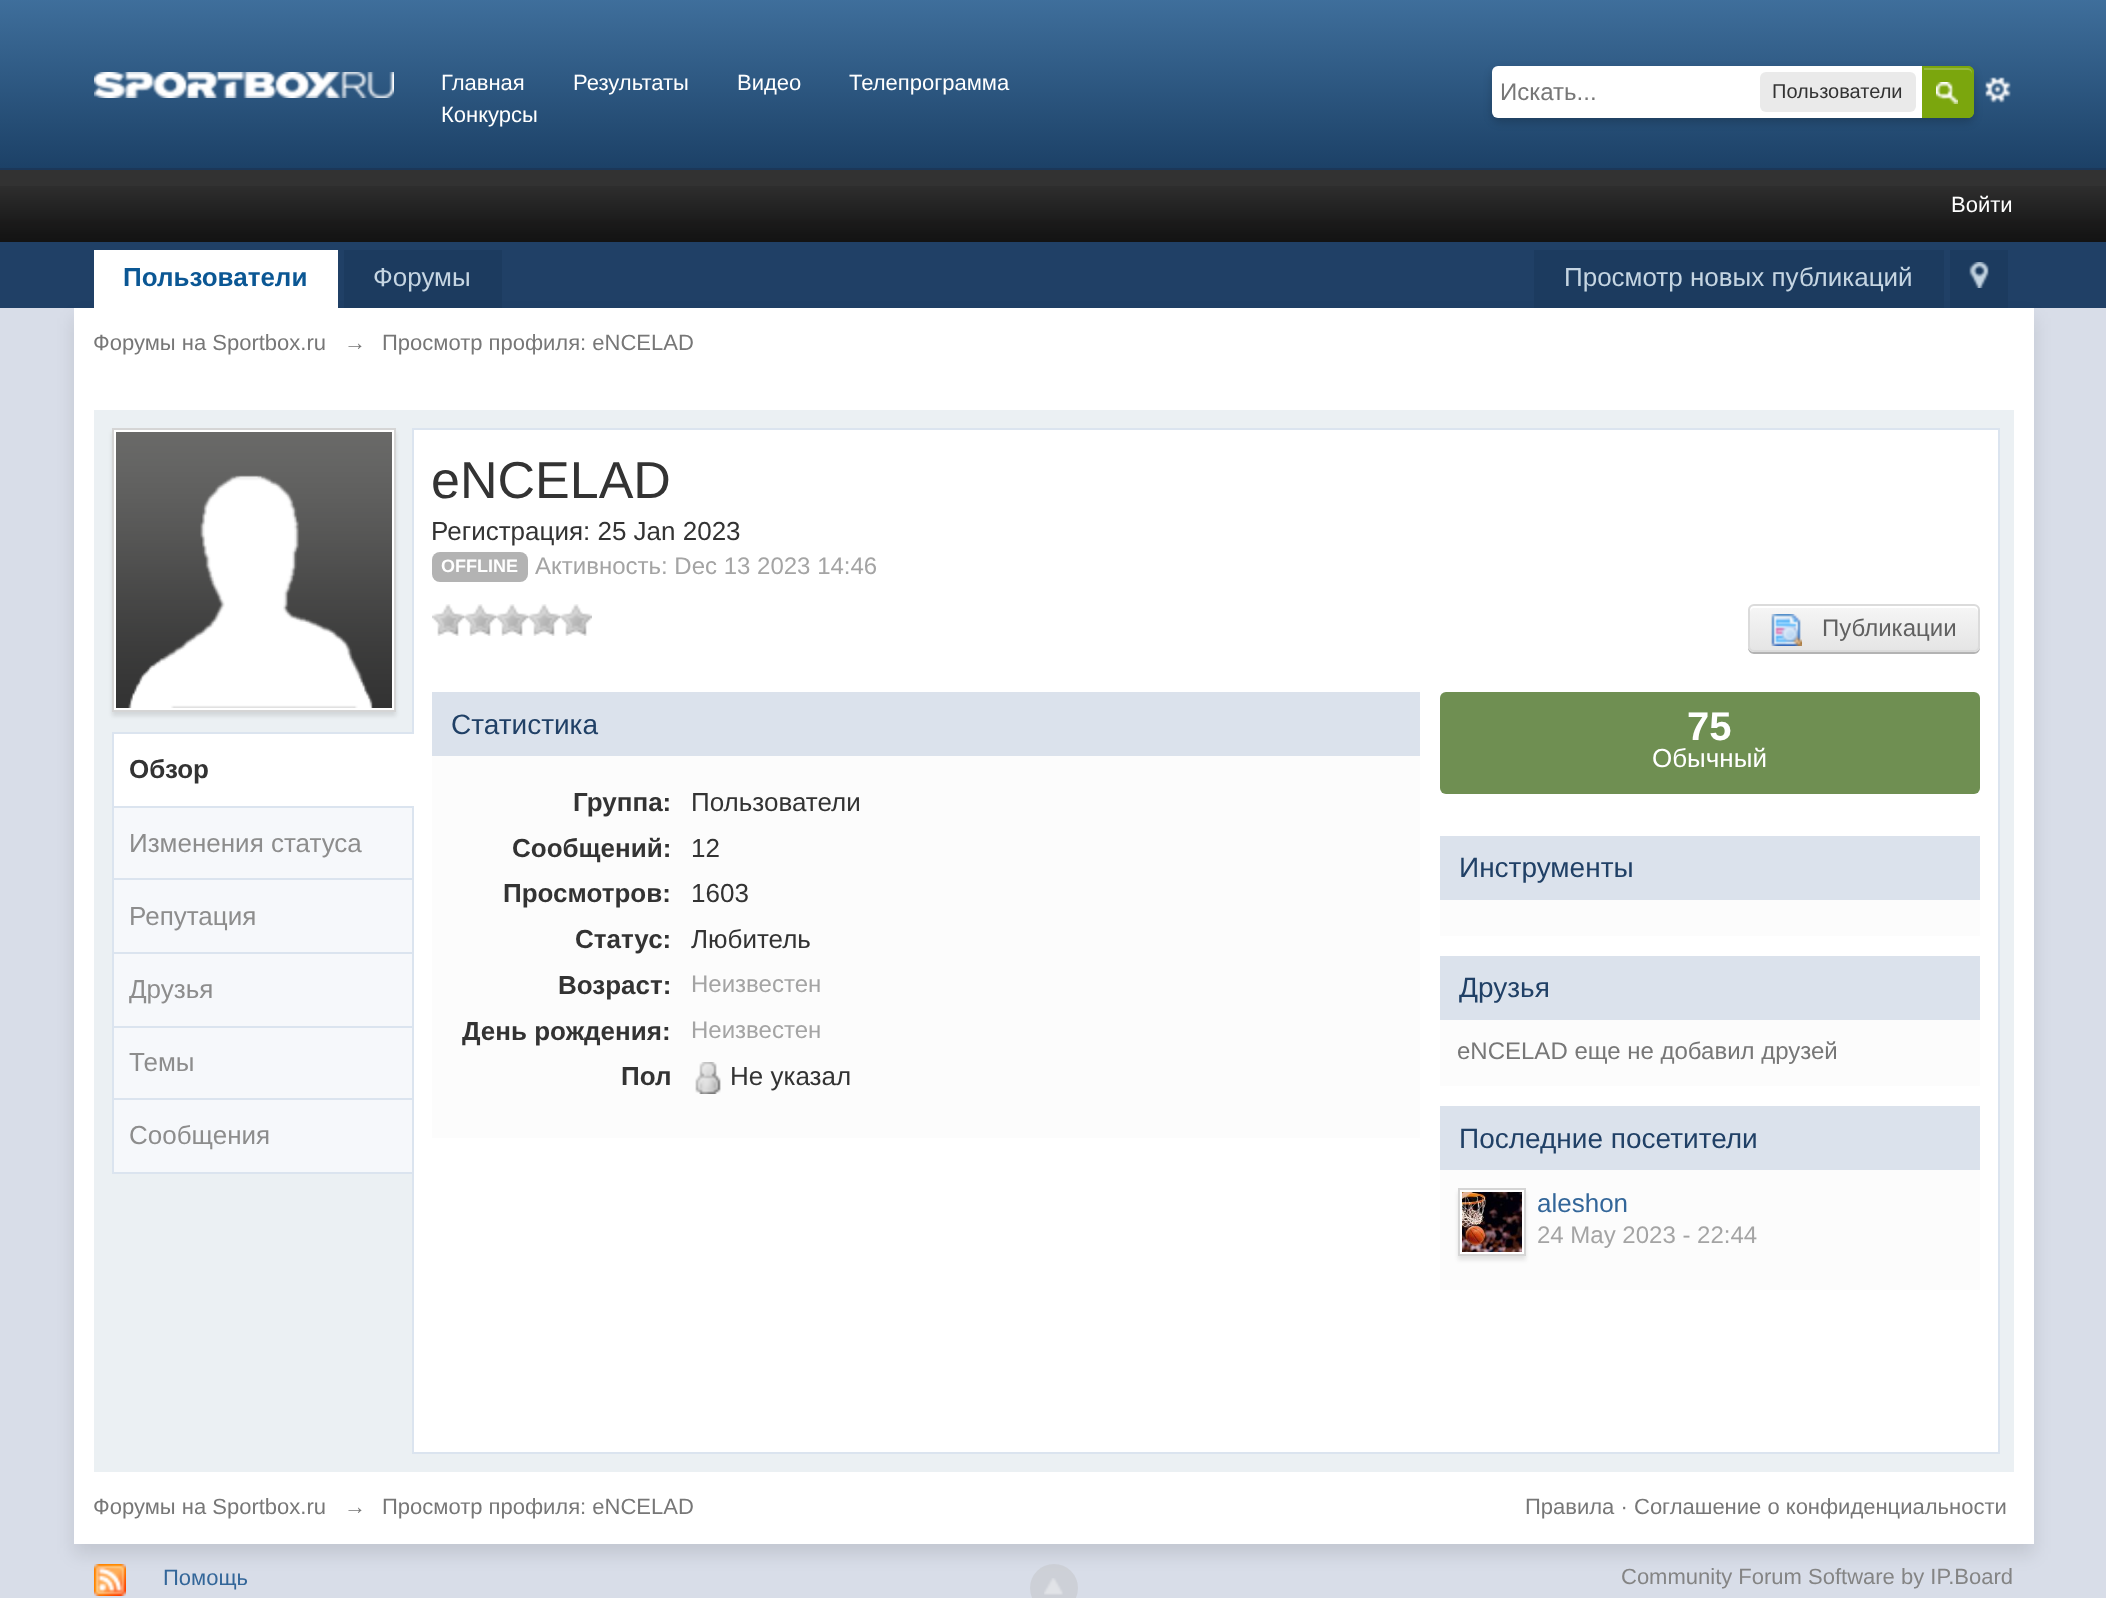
<!DOCTYPE html>
<meta charset="utf-8">
<style>body { margin: 0 } canvas { display: block }</style>
<canvas id="canvas" width="2106" height="1598"></canvas>
<script type="module">
  const canvas = document.getElementById("canvas");
  const ctx = canvas.getContext("2d");
  ctx.miterLimit = 4;
  ctx.fontKerning = "normal";
  async function loadImage(src) {
    const img = new Image();
    img.src = src;
    await img.decode();
    return img;
  }
  let gradient;

  ctx.fillStyle = "#d8dde8";
  ctx.fillRect(0, 0, 2106, 1598);
  gradient = ctx.createLinearGradient(1053, -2, 1053, 168);
  gradient.addColorStop(0, "#3f6f9c");
  gradient.addColorStop(1, "#1c4167");
  ctx.fillStyle = gradient;
  ctx.fillRect(0, 0, 2106, 168);
  ctx.fillStyle = "#1b3759";
  ctx.fillRect(0, 168, 2106, 2);
  ctx.drawImage(await loadImage("img1.png"), 94, 72, 300, 26);
  ctx.font = "22px Liberation Sans";
  ctx.fillStyle = "#ffffff";
  ctx.fillText("Главная", 441, 90);
  ctx.fillText("Результаты", 573, 90);
  ctx.fillText("Видео", 737, 90);
  ctx.fillText("Телепрограмма", 849, 90);
  ctx.fillText("Конкурсы", 441, 122);
  ctx.drawImage(await loadImage("img3.png"), 1985, 77, 26, 26);
  ctx.fillStyle = "rgba(0, 0, 0, 0.2)";
  ctx.filter = "blur(4px)";
  ctx.beginPath();
  ctx.roundRect(1492, 70, 482, 52, 8);
  ctx.fill();
  ctx.filter = "none";
  ctx.fillStyle = "#ffffff";
  ctx.beginPath();
  ctx.roundRect(1492, 66, 482, 52, [6, 8, 8, 6]);
  ctx.fill();
  ctx.font = "24px Liberation Sans";
  ctx.fillStyle = "#777777";
  ctx.fillText("Искать...", 1500, 100);
  ctx.fillStyle = "#eaeaea";
  ctx.beginPath();
  ctx.roundRect(1760, 72, 156, 40, 6);
  ctx.fill();
  ctx.font = "20px Liberation Sans";
  ctx.fillStyle = "#333333";
  ctx.fillText("Пользователи", 1772, 98);
  ctx.fillStyle = "#7ba60d";
  ctx.beginPath();
  ctx.roundRect(1922, 66, 52, 52, [0, 6, 6, 0]);
  ctx.fill();
  ctx.drawImage(await loadImage("img2.png"), 1936, 82, 22, 22);
  ctx.fillStyle = "#95b83d";
  ctx.beginPath();
  ctx.moveTo(1924, 70);
  ctx.lineTo(1968, 70);
  ctx.bezierCurveTo(1970, 70, 1972, 72, 1972, 74);
  ctx.lineTo(1972, 72);
  ctx.bezierCurveTo(1972, 70, 1970, 68, 1968, 68);
  ctx.lineTo(1924, 68);
  ctx.closePath();
  ctx.fill();
  ctx.beginPath();
  ctx.roundRect(1923, 67, 50, 50, [0, 5, 5, 0]);
  ctx.strokeStyle = "#7ba60d";
  ctx.lineWidth = 2;
  ctx.stroke();
  ctx.fillStyle = "#323232";
  ctx.fillRect(0, 170, 2106, 16);
  ctx.drawImage(await loadImage("img4.png"), 0, 186, 2106, 56);
  ctx.font = "22px Liberation Sans";
  ctx.fillStyle = "#ffffff";
  ctx.fillText("Войти", 1951, 212);
  ctx.fillStyle = "#204066";
  ctx.fillRect(0, 242, 2106, 66);
  ctx.fillStyle = "rgba(0, 0, 0, 0.1)";
  ctx.filter = "blur(9px)";
  ctx.beginPath();
  ctx.rect(74, 318, 1960, 1236);
  ctx.fill();
  ctx.filter = "none";
  ctx.fillStyle = "#ffffff";
  ctx.fillRect(94, 250, 244, 58);
  ctx.font = "bold 26px Liberation Sans";
  ctx.fillStyle = "#0b5794";
  ctx.fillText("Пользователи", 123, 286);
  ctx.fillStyle = "#1c3b5f";
  ctx.fillRect(344, 250, 158, 58);
  ctx.font = "26px Liberation Sans";
  ctx.fillStyle = "#c5d5e2";
  ctx.fillText("Форумы", 373, 286);
  ctx.fillStyle = "#1c3b5f";
  ctx.fillRect(1534, 250, 410, 58);
  ctx.fillStyle = "#c5d5e2";
  ctx.fillText("Просмотр новых публикаций", 1564, 286);
  ctx.fillStyle = "#1c3b5f";
  ctx.fillRect(1950, 250, 58, 58);
  ctx.drawImage(await loadImage("img5.png"), 1969, 262, 20, 26);
  ctx.fillStyle = "#ffffff";
  ctx.fillRect(74, 308, 1960, 1236);
  ctx.font = "22px Liberation Sans";
  ctx.fillStyle = "#777777";
  ctx.fillText("Форумы на Sportbox.ru", 93, 350);
  ctx.fillText("→", 344, 350);
  ctx.fillText("Просмотр профиля: eNCELAD", 382, 350);
  ctx.fillStyle = "#ebf0f3";
  ctx.fillRect(94, 410, 1920, 1062);
  ctx.fillStyle = "rgba(0, 0, 0, 0.1)";
  ctx.filter = "blur(2px)";
  ctx.beginPath();
  ctx.rect(112, 432, 284, 284);
  ctx.fill();
  ctx.filter = "none";
  ctx.fillStyle = "#ffffff";
  ctx.beginPath();
  ctx.rect(113, 429, 282, 282);
  ctx.fill();
  ctx.strokeStyle = "#d5d5d5";
  ctx.stroke();
  ctx.drawImage(await loadImage("img6.png"), 116, 432, 276, 276);
  ctx.fillStyle = "#dbe4ef";
  ctx.fillRect(112, 732, 300, 2);
  ctx.fillRect(112, 732, 2, 442);
  ctx.fillRect(114, 806, 298, 2);
  ctx.fillStyle = "#ffffff";
  ctx.beginPath();
  ctx.rect(413, 429, 1586, 1024);
  ctx.fill();
  ctx.strokeStyle = "#dbe4ef";
  ctx.stroke();
  ctx.fillRect(114, 734, 300, 72);
  ctx.font = "bold 26px Liberation Sans";
  ctx.fillStyle = "#333333";
  ctx.fillText("Обзор", 129, 778);
  ctx.fillStyle = "#f6f8fb";
  ctx.fillRect(114, 808, 298, 70);
  ctx.fillStyle = "#dbe4ef";
  ctx.fillRect(114, 878, 298, 2);
  ctx.font = "26px Liberation Sans";
  ctx.fillStyle = "#8d8d8d";
  ctx.fillText("Изменения статуса", 129, 852);
  ctx.fillStyle = "#f6f8fb";
  ctx.fillRect(114, 880, 298, 72);
  ctx.fillStyle = "#dbe4ef";
  ctx.fillRect(114, 952, 298, 2);
  ctx.fillStyle = "#8d8d8d";
  ctx.fillText("Репутация", 129, 925);
  ctx.fillStyle = "#f6f8fb";
  ctx.fillRect(114, 954, 298, 72);
  ctx.fillStyle = "#dbe4ef";
  ctx.fillRect(114, 1026, 298, 2);
  ctx.fillStyle = "#8d8d8d";
  ctx.fillText("Друзья", 129, 998);
  ctx.fillStyle = "#f6f8fb";
  ctx.fillRect(114, 1028, 298, 70);
  ctx.fillStyle = "#dbe4ef";
  ctx.fillRect(114, 1098, 298, 2);
  ctx.fillStyle = "#8d8d8d";
  ctx.fillText("Темы", 129, 1071);
  ctx.fillStyle = "#f6f8fb";
  ctx.fillRect(114, 1100, 298, 72);
  ctx.fillStyle = "#dbe4ef";
  ctx.fillRect(114, 1172, 298, 2);
  ctx.fillStyle = "#8d8d8d";
  ctx.fillText("Сообщения", 129, 1144);
  ctx.font = "52px Liberation Sans";
  ctx.fillStyle = "#333333";
  ctx.fillText("eNCELAD", 431, 498);
  ctx.font = "26px Liberation Sans";
  ctx.fillText("Регистрация: 25 Jan 2023", 431, 540);
  ctx.fillStyle = "#b3b3b3";
  ctx.beginPath();
  ctx.roundRect(432, 552, 96, 30, 8);
  ctx.fill();
  ctx.font = "bold 18px Liberation Sans";
  ctx.fillStyle = "#ffffff";
  ctx.fillText("OFFLINE", 441, 572);
  ctx.font = "24px Liberation Sans";
  ctx.fillStyle = "#a4a4a4";
  ctx.fillText("Активность: Dec 13 2023 14:46", 535, 574);
  ctx.drawImage(await loadImage("img7.png"), 432, 604, 32, 32);
  ctx.drawImage(await loadImage("img7.png"), 464, 604, 32, 32);
  ctx.drawImage(await loadImage("img7.png"), 496, 604, 32, 32);
  ctx.drawImage(await loadImage("img7.png"), 528, 604, 32, 32);
  ctx.drawImage(await loadImage("img7.png"), 560, 604, 32, 32);
  ctx.fillStyle = "#b3b3b3";
  ctx.beginPath();
  ctx.moveTo(1748, 646);
  ctx.lineTo(1748, 648);
  ctx.bezierCurveTo(1748, 651, 1751, 654, 1754, 654);
  ctx.lineTo(1974, 654);
  ctx.bezierCurveTo(1977, 654, 1980, 651, 1980, 648);
  ctx.lineTo(1980, 646);
  ctx.bezierCurveTo(1980, 649, 1977, 652, 1974, 652);
  ctx.lineTo(1754, 652);
  ctx.bezierCurveTo(1751, 652, 1748, 649, 1748, 646);
  ctx.closePath();
  ctx.fill();
  ctx.save();
  ctx.beginPath();
  ctx.roundRect(1748, 604, 232, 48, 6);
  ctx.clip();
  gradient = ctx.createLinearGradient(1750, 606, 1750, 650);
  gradient.addColorStop(0, "#f6f6f6");
  gradient.addColorStop(1, "#e5e5e5");
  ctx.fillStyle = gradient;
  ctx.fillRect(1748, 606, 232, 44);
  ctx.restore();
  ctx.fillStyle = "#ffffff";
  ctx.beginPath();
  ctx.moveTo(1754, 608);
  ctx.lineTo(1974, 608);
  ctx.bezierCurveTo(1976, 608, 1978, 610, 1978, 612);
  ctx.bezierCurveTo(1978, 609, 1978, 606, 1974, 606);
  ctx.lineTo(1754, 606);
  ctx.bezierCurveTo(1750, 606, 1750, 609, 1750, 612);
  ctx.bezierCurveTo(1750, 610, 1752, 608, 1754, 608);
  ctx.closePath();
  ctx.fill();
  ctx.beginPath();
  ctx.roundRect(1749, 605, 230, 46, 5);
  ctx.strokeStyle = "#dbdbdb";
  ctx.stroke();
  ctx.drawImage(await loadImage("img8.png"), 1771, 614, 31, 32);
  ctx.fillStyle = "#616161";
  ctx.fillText("Публикации", 1822, 636);
  ctx.fillStyle = "#fcfcfc";
  ctx.fillRect(432, 756, 988, 382);
  ctx.fillStyle = "#dbe2ec";
  ctx.fillRect(432, 692, 988, 64);
  ctx.font = "28px Liberation Sans";
  ctx.fillStyle = "#204066";
  ctx.fillText("Статистика", 451, 734);
  ctx.font = "bold 26px Liberation Sans";
  ctx.fillStyle = "#333333";
  ctx.fillText("Группа:", 573, 811);
  ctx.font = "26px Liberation Sans";
  ctx.fillText("Пользователи", 691, 811);
  ctx.font = "bold 26px Liberation Sans";
  ctx.fillText("Сообщений:", 512, 857);
  ctx.font = "26px Liberation Sans";
  ctx.fillText("12", 691, 857);
  ctx.font = "bold 26px Liberation Sans";
  ctx.fillText("Просмотров:", 503, 902);
  ctx.font = "26px Liberation Sans";
  ctx.fillText("1603", 691, 902);
  ctx.font = "bold 26px Liberation Sans";
  ctx.fillText("Статус:", 575, 948);
  ctx.font = "26px Liberation Sans";
  ctx.fillText("Любитель", 691, 948);
  ctx.font = "bold 26px Liberation Sans";
  ctx.fillText("Возраст:", 558, 994);
  ctx.font = "24px Liberation Sans";
  ctx.fillStyle = "#a4a4a4";
  ctx.fillText("Неизвестен", 691, 992);
  ctx.font = "bold 26px Liberation Sans";
  ctx.fillStyle = "#333333";
  ctx.fillText("День рождения:", 462, 1040);
  ctx.font = "24px Liberation Sans";
  ctx.fillStyle = "#a4a4a4";
  ctx.fillText("Неизвестен", 691, 1038);
  ctx.font = "bold 26px Liberation Sans";
  ctx.fillStyle = "#333333";
  ctx.fillText("Пол", 621, 1085);
  ctx.drawImage(await loadImage("img9.png"), 695, 1062, 26, 32);
  ctx.font = "26px Liberation Sans";
  ctx.fillText("Не указал", 730, 1085);
  ctx.fillStyle = "#6f8f52";
  ctx.beginPath();
  ctx.roundRect(1440, 692, 540, 102, 6);
  ctx.fill();
  ctx.font = "bold 40px Liberation Sans";
  ctx.fillStyle = "#ffffff";
  ctx.fillText("75", 1687, 740);
  ctx.font = "26px Liberation Sans";
  ctx.fillText("Обычный", 1652, 767);
  ctx.fillStyle = "#fcfcfc";
  ctx.fillRect(1440, 900, 540, 36);
  ctx.fillStyle = "#dbe2ec";
  ctx.fillRect(1440, 836, 540, 64);
  ctx.font = "28px Liberation Sans";
  ctx.fillStyle = "#204066";
  ctx.fillText("Инструменты", 1459, 877);
  ctx.fillStyle = "#fcfcfc";
  ctx.fillRect(1440, 1020, 540, 66);
  ctx.fillStyle = "#dbe2ec";
  ctx.fillRect(1440, 956, 540, 64);
  ctx.fillStyle = "#204066";
  ctx.fillText("Друзья", 1459, 997);
  ctx.font = "24px Liberation Sans";
  ctx.fillStyle = "#777777";
  ctx.fillText("eNCELAD еще не добавил друзей", 1457, 1059);
  ctx.fillStyle = "#fcfcfc";
  ctx.fillRect(1440, 1170, 540, 120);
  ctx.fillStyle = "#dbe2ec";
  ctx.fillRect(1440, 1106, 540, 64);
  ctx.font = "28px Liberation Sans";
  ctx.fillStyle = "#204066";
  ctx.fillText("Последние посетители", 1459, 1148);
  ctx.fillStyle = "rgba(0, 0, 0, 0.1)";
  ctx.filter = "blur(2px)";
  ctx.beginPath();
  ctx.rect(1458, 1192, 68, 68);
  ctx.fill();
  ctx.filter = "none";
  ctx.fillStyle = "#ffffff";
  ctx.beginPath();
  ctx.rect(1459, 1189, 66, 66);
  ctx.fill();
  ctx.strokeStyle = "#d5d5d5";
  ctx.stroke();
  ctx.drawImage(await loadImage("img10.png"), 1462, 1192, 60, 60);
  ctx.font = "26px Liberation Sans";
  ctx.fillStyle = "#336699";
  ctx.fillText("aleshon", 1537, 1212);
  ctx.font = "24px Liberation Sans";
  ctx.fillStyle = "#a4a4a4";
  ctx.fillText("24 May 2023 - 22:44", 1537, 1243);
  ctx.font = "22px Liberation Sans";
  ctx.fillStyle = "#777777";
  ctx.fillText("Форумы на Sportbox.ru", 93, 1514);
  ctx.fillText("→", 344, 1514);
  ctx.fillText("Просмотр профиля: eNCELAD", 382, 1514);
  ctx.fillText("Правила ·", 1525, 1514);
  ctx.fillText("Соглашение о конфиденциальности", 1634, 1514);
  ctx.drawImage(await loadImage("img11.png"), 94, 1564, 32, 32);
  ctx.fillStyle = "#336699";
  ctx.fillText("Помощь", 163, 1585);
  ctx.fillStyle = "rgba(189, 189, 189, 0.4)";
  ctx.beginPath();
  ctx.arc(1054, 1588, 24, 0, Math.PI * 2);
  ctx.fill();
  ctx.drawImage(await loadImage("img12.png"), 1044, 1578, 19, 17);
  ctx.fillStyle = "#848484";
  ctx.fillText("Community Forum Software by IP.Board", 1621, 1584);
</script>
